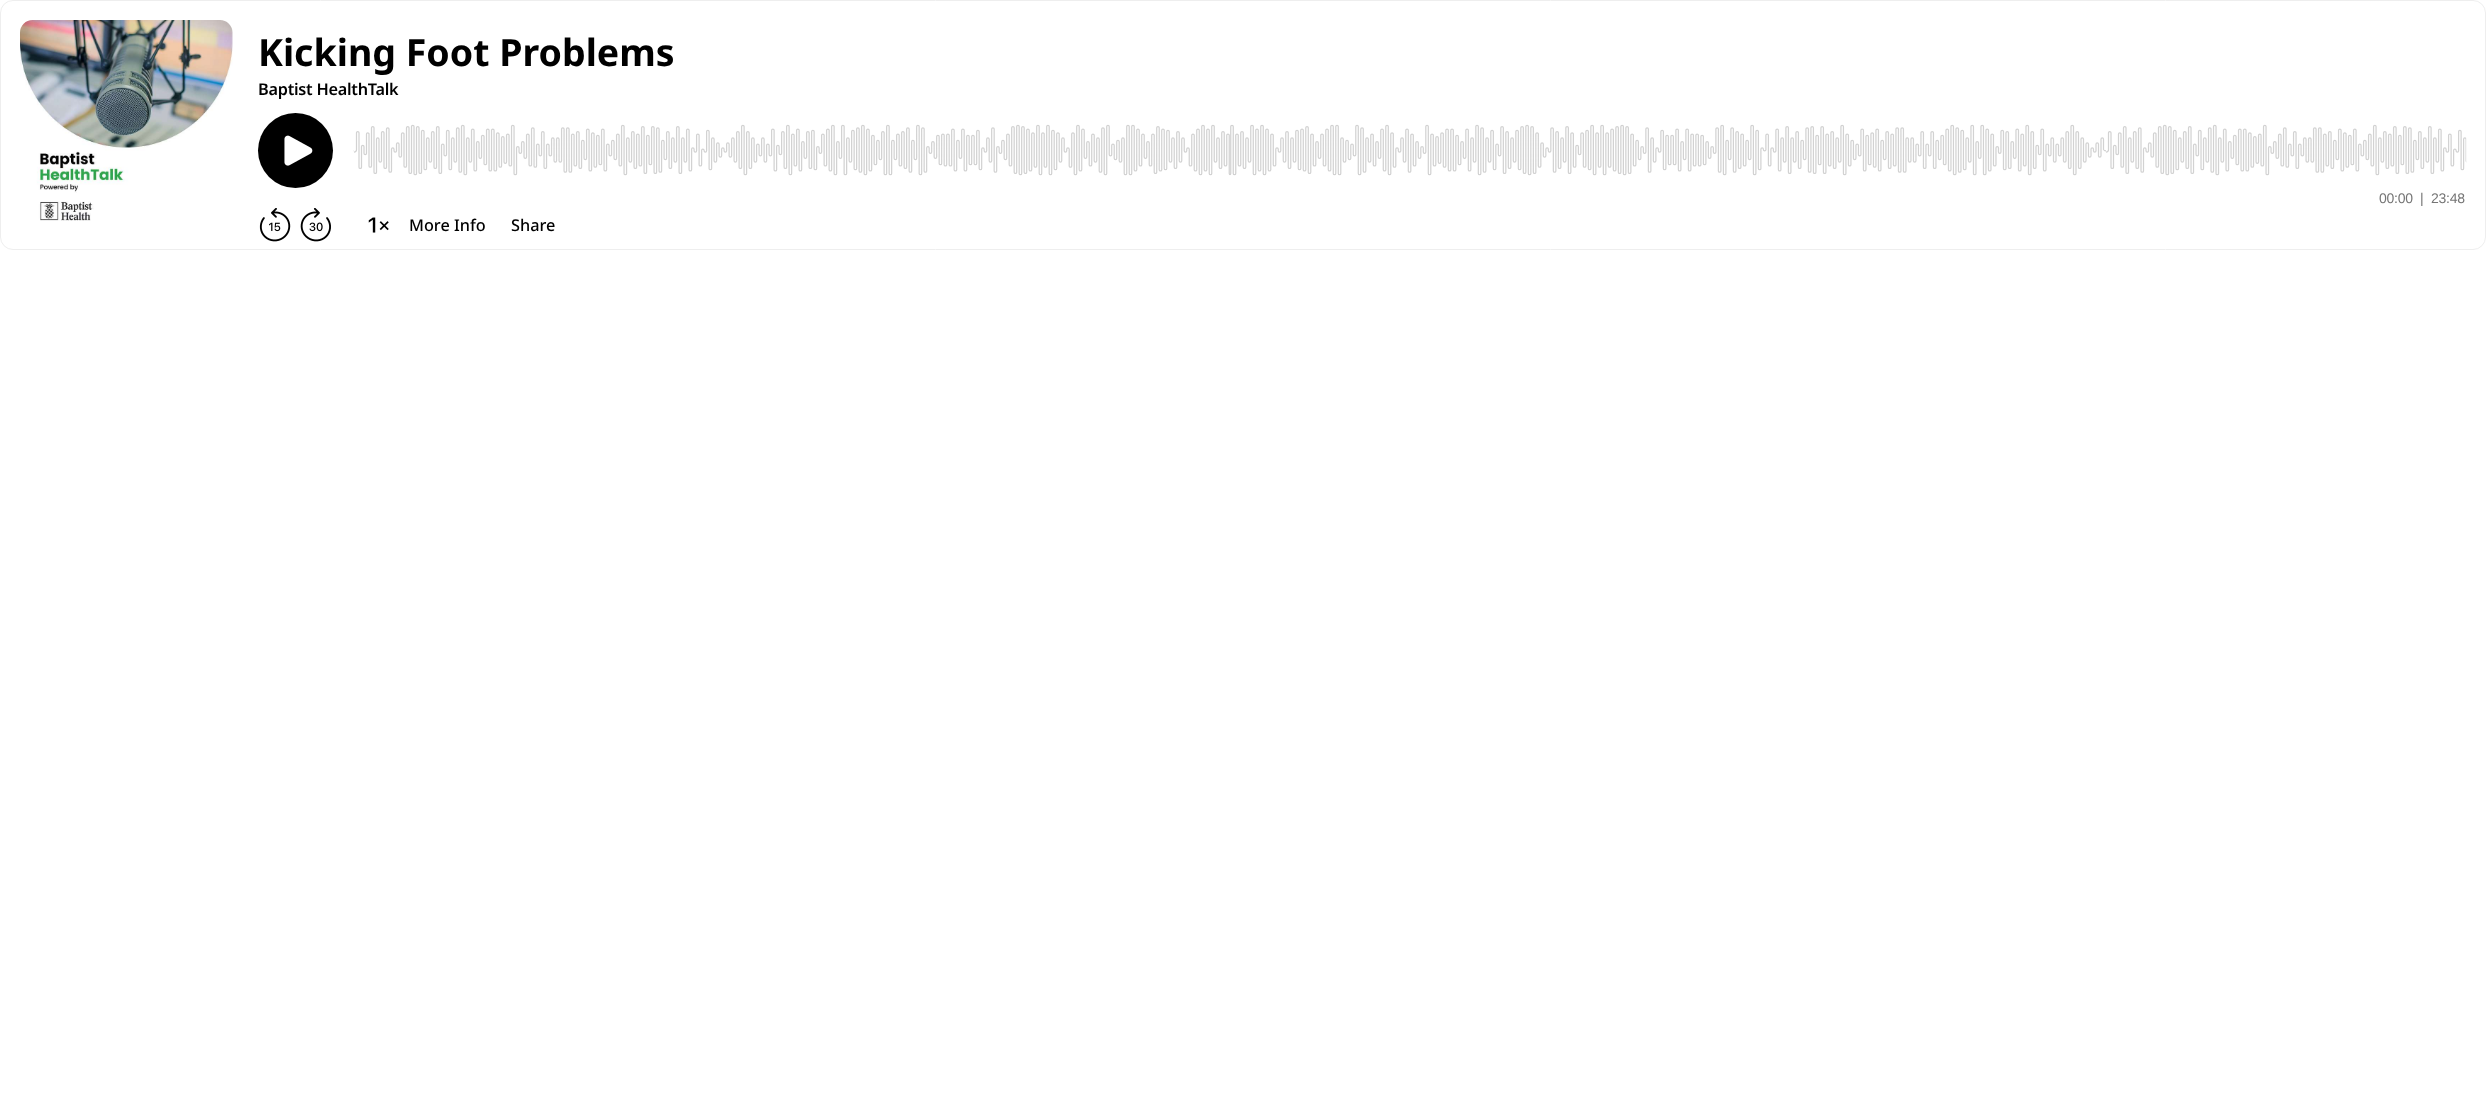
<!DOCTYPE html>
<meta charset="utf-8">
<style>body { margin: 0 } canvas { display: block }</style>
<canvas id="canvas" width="2486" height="1111"></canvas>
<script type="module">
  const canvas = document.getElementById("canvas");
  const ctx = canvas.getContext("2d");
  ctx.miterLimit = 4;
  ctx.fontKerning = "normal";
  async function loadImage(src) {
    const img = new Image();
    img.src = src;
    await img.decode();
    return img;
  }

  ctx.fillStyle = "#ffffff";
  ctx.fillRect(0, 0, 2486, 1111);
  ctx.beginPath();
  ctx.roundRect(0.5, 0.5, 2485, 249, 12.5);
  ctx.strokeStyle = "#eeeeee";
  ctx.stroke();
  ctx.drawImage(await loadImage("img1.png"), 20, 20, 213, 201);
  ctx.font = "bold 37.5px Noto Sans";
  ctx.fillStyle = "#000000";
  ctx.fillText("Kicking Foot Problems", 258, 66);
  ctx.letterSpacing = "-0.25px";
  ctx.font = "600 16.25px Noto Sans";
  ctx.fillText("Baptist HealthTalk", 258, 95);
  ctx.beginPath();
  ctx.arc(295.5, 150.5, 37.5, 0, Math.PI * 2);
  ctx.fill();
  ctx.drawImage(await loadImage("img2.png"), 284, 135, 29, 31);
  ctx.drawImage(await loadImage("img3.png"), 259, 208, 32, 34);
  ctx.drawImage(await loadImage("img4.png"), 300, 208, 31, 34);
  ctx.drawImage(await loadImage("img5.png"), 353, 124, 2114, 52);
  ctx.font = "14px Liberation Sans";
  ctx.fillStyle = "#757575";
  ctx.fillText("00:00", 2379, 203);
  ctx.fillText("|", 2420, 203);
  ctx.fillText("23:48", 2431, 203);
  ctx.drawImage(await loadImage("img6.png"), 368, 217, 21, 16);
  ctx.letterSpacing = "0px";
  ctx.font = "500 16.25px Noto Sans";
  ctx.fillStyle = "#000000";
  ctx.fillText("More Info", 409, 231);
  ctx.fillText("Share", 511, 231);
</script>
